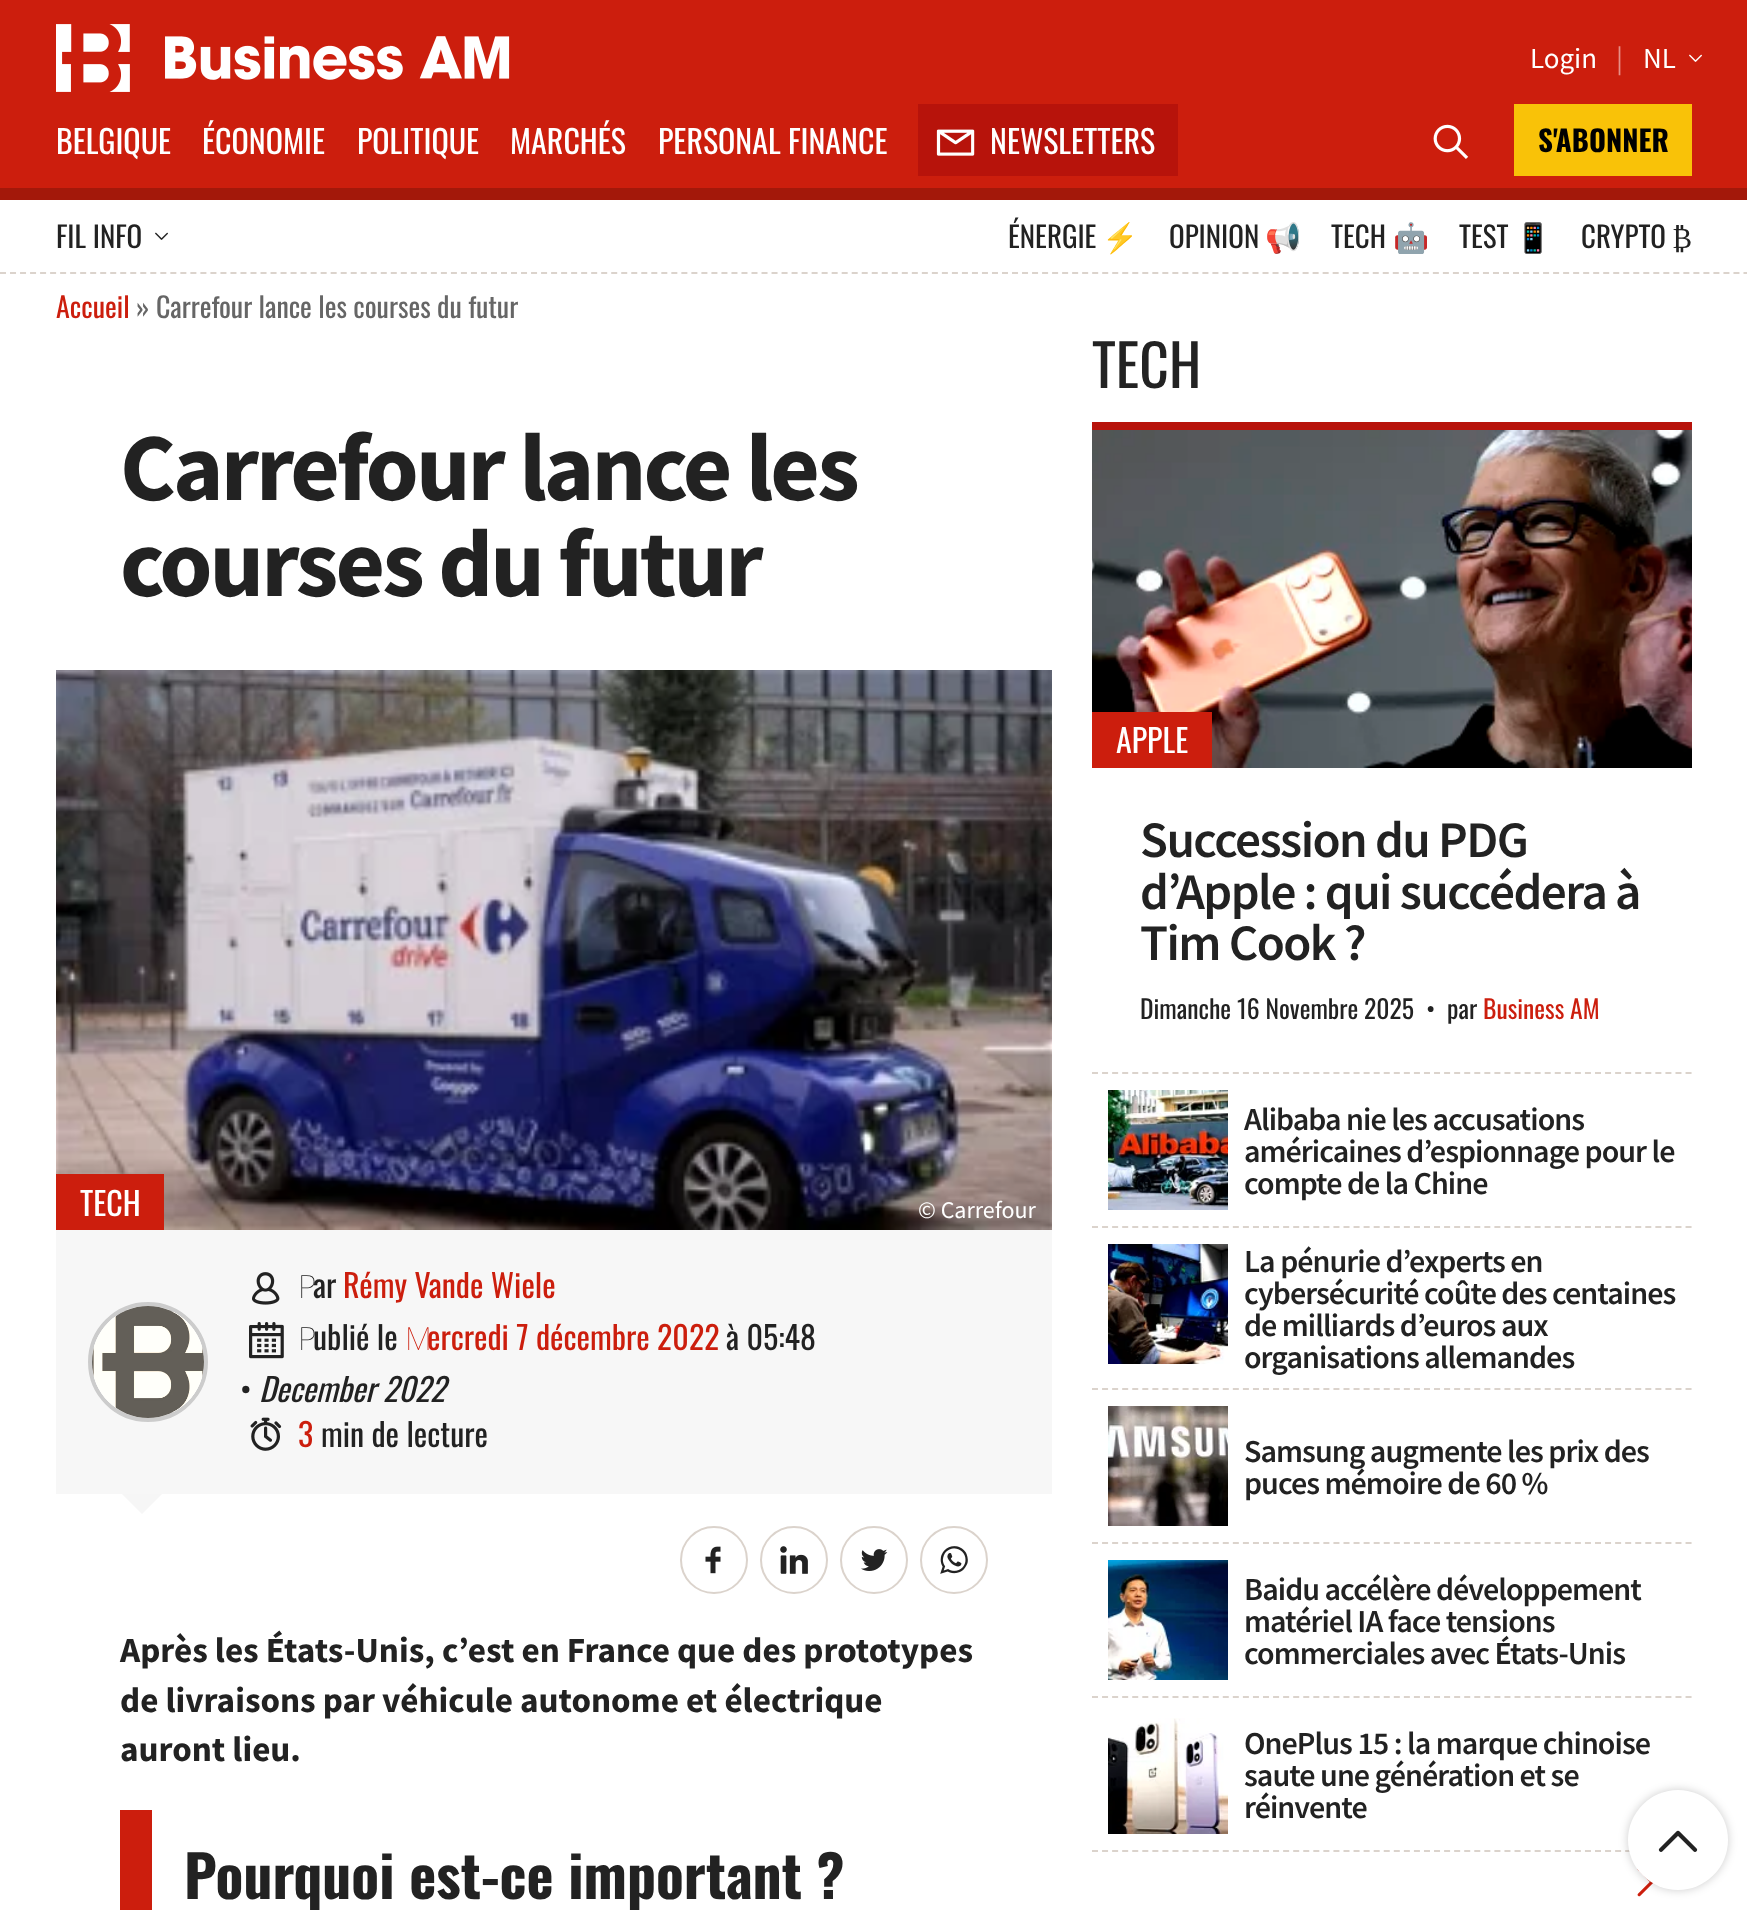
<!DOCTYPE html>
<meta charset="utf-8">
<style>body { margin: 0 } canvas { display: block }</style>
<canvas id="canvas" width="1747" height="1910"></canvas>
<script type="module">
  const canvas = document.getElementById("canvas");
  const ctx = canvas.getContext("2d");
  ctx.miterLimit = 4;
  ctx.fontKerning = "normal";
  async function loadImage(src) {
    const img = new Image();
    img.src = src;
    await img.decode();
    return img;
  }

  ctx.fillStyle = "#ffffff";
  ctx.fillRect(0, 0, 1747, 1910);
  ctx.fillStyle = "#cc1e0d";
  ctx.fillRect(0, 0, 1747, 188);
  ctx.drawImage(await loadImage("img1.png"), 56, 24, 454, 68);
  ctx.font = "29px Source Sans Pro";
  ctx.fillStyle = "#ffffff";
  ctx.fillText("Login", 1530, 68);
  ctx.fillStyle = "#e68f86";
  ctx.fillText("|", 1616, 68);
  ctx.fillStyle = "#ffffff";
  ctx.fillText("NL", 1643, 68);
  ctx.drawImage(await loadImage("img2.png"), 1689, 54, 13, 8);
  ctx.font = "32px Oswald";
  ctx.fillText("BELGIQUE", 56, 154);
  ctx.fillText("ÉCONOMIE", 202, 154);
  ctx.fillText("POLITIQUE", 357, 154);
  ctx.fillText("MARCHÉS", 510, 154);
  ctx.fillText("PERSONAL FINANCE", 658, 154);
  ctx.fillStyle = "#b7130b";
  ctx.fillRect(918, 104, 260, 72);
  ctx.drawImage(await loadImage("img3.png"), 936, 129, 39, 27);
  ctx.fillStyle = "#ffffff";
  ctx.fillText("NEWSLETTERS", 990, 154);
  ctx.drawImage(await loadImage("img4.png"), 1433, 124, 36, 35);
  ctx.fillStyle = "#f9c208";
  ctx.fillRect(1514, 104, 178, 72);
  ctx.font = "bold 29px Oswald";
  ctx.fillStyle = "#000000";
  ctx.fillText("S'ABONNER", 1538, 152);
  ctx.fillStyle = "#a3180a";
  ctx.fillRect(0, 188, 1747, 12);
  ctx.font = "29px Oswald";
  ctx.fillStyle = "#222222";
  ctx.fillText("FIL INFO", 56, 248);
  ctx.drawImage(await loadImage("img5.png"), 155, 232, 13, 8);
  ctx.fillText("ÉNERGIE", 1008, 248);
  ctx.font = "29px Noto Color Emoji";
  ctx.fillText("⚡", 1102, 248);
  ctx.font = "29px Oswald";
  ctx.fillText("OPINION", 1169, 248);
  ctx.font = "29px Noto Color Emoji";
  ctx.fillText("📢", 1265, 248);
  ctx.font = "29px Oswald";
  ctx.fillText("TECH", 1331, 248);
  ctx.font = "29px Noto Color Emoji";
  ctx.fillText("🤖", 1393, 248);
  ctx.font = "29px Oswald";
  ctx.fillText("TEST", 1459, 248);
  ctx.font = "29px Noto Color Emoji";
  ctx.fillText("📱", 1515, 248);
  ctx.font = "29px Oswald";
  ctx.fillText("CRYPTO", 1581, 248);
  ctx.font = "29px Liberation Serif";
  ctx.fillText("₿", 1672, 248);
  ctx.beginPath();
  ctx.moveTo(0, 273);
  ctx.lineTo(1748, 273);
  ctx.strokeStyle = "#dbd3cc";
  ctx.lineWidth = 2;
  ctx.setLineDash([6, 4.02]);
  ctx.stroke();
  ctx.font = "28px Oswald";
  ctx.fillStyle = "#cc1e0d";
  ctx.fillText("Accueil", 56, 318);
  ctx.fillStyle = "#666666";
  ctx.fillText("» Carrefour lance les courses du futur", 136, 318);
  ctx.letterSpacing = "-2.9px";
  ctx.font = "bold 96px Source Sans Pro";
  ctx.fillStyle = "#222222";
  ctx.fillText("Carrefour lance les", 120, 500);
  ctx.fillText("courses du futur", 120, 596);
  ctx.drawImage(await loadImage("img6.png"), 56, 670, 996, 560);
  ctx.fillStyle = "#cc1e0d";
  ctx.fillRect(56, 1174, 108, 56);
  ctx.letterSpacing = "0px";
  ctx.font = "32px Oswald";
  ctx.fillStyle = "#ffffff";
  ctx.fillText("TECH", 80, 1216);
  ctx.font = "24px Source Sans Pro";
  ctx.fillText("© Carrefour", 918, 1218);
  ctx.fillStyle = "#f7f7f7";
  ctx.fillRect(56, 1230, 996, 264);
  ctx.fillStyle = "#ffffff";
  ctx.beginPath();
  ctx.arc(148, 1362, 60, 0, Math.PI * 2);
  ctx.fill();
  ctx.beginPath();
  ctx.arc(148, 1362, 58, 0, Math.PI * 2);
  ctx.strokeStyle = "rgba(0, 0, 0, 0.2)";
  ctx.lineWidth = 4;
  ctx.setLineDash([]);
  ctx.stroke();
  ctx.beginPath();
  ctx.arc(148, 1362, 56, 0, Math.PI * 2);
  ctx.fill();
  ctx.drawImage(await loadImage("img7.png"), 92, 1306, 112, 112);
  ctx.drawImage(await loadImage("img8.png"), 252, 1272, 28, 33);
  ctx.font = "100 32px Noto Sans";
  ctx.fillStyle = "#222222";
  ctx.fillText("P", 298, 1298);
  ctx.font = "32px Oswald";
  ctx.fillText("ar", 313, 1298);
  ctx.fillStyle = "#cc1e0d";
  ctx.fillText("Rémy Vande Wiele", 343, 1298);
  ctx.drawImage(await loadImage("img9.png"), 249, 1322, 35, 37);
  ctx.font = "100 32px Noto Sans";
  ctx.fillStyle = "#222222";
  ctx.fillText("P", 298, 1350);
  ctx.font = "32px Oswald";
  ctx.fillText("ublié le", 313, 1350);
  ctx.font = "100 32px Noto Sans";
  ctx.fillStyle = "#cc1e0d";
  ctx.fillText("M", 405, 1350);
  ctx.font = "32px Oswald";
  ctx.fillText("ercredi 7 décembre 2022", 427, 1350);
  ctx.fillStyle = "#222222";
  ctx.fillText("à 05:48", 726, 1350);
  ctx.fillText("•", 240, 1402);
  ctx.font = "italic 32px Oswald";
  ctx.fillText("December 2022", 259, 1402);
  ctx.drawImage(await loadImage("img10.png"), 250, 1417, 32, 34);
  ctx.font = "32px Oswald";
  ctx.fillStyle = "#cc1e0d";
  ctx.fillText("3", 298, 1447);
  ctx.fillStyle = "#222222";
  ctx.fillText("min de lecture", 321, 1447);
  ctx.fillStyle = "#f6f6f6";
  ctx.beginPath();
  ctx.moveTo(122, 1494);
  ctx.lineTo(162, 1494);
  ctx.lineTo(142, 1514);
  ctx.closePath();
  ctx.fill();
  ctx.beginPath();
  ctx.arc(714, 1560, 33, 0, Math.PI * 2);
  ctx.strokeStyle = "#dbd3cc";
  ctx.lineWidth = 2;
  ctx.stroke();
  ctx.drawImage(await loadImage("img11.png"), 705, 1546, 16, 28);
  ctx.beginPath();
  ctx.arc(794, 1560, 33, 0, Math.PI * 2);
  ctx.stroke();
  ctx.drawImage(await loadImage("img12.png"), 780, 1546, 28, 28);
  ctx.beginPath();
  ctx.arc(874, 1560, 33, 0, Math.PI * 2);
  ctx.stroke();
  ctx.drawImage(await loadImage("img13.png"), 861, 1549, 27, 22);
  ctx.beginPath();
  ctx.arc(954, 1560, 33, 0, Math.PI * 2);
  ctx.stroke();
  ctx.drawImage(await loadImage("img14.png"), 940, 1546, 28, 28);
  ctx.font = "bold 35.2px Source Sans Pro";
  ctx.fillStyle = "#222222";
  ctx.fillText("Après les États-Unis, c’est en France que des prototypes", 120, 1662);
  ctx.fillText("de livraisons par véhicule autonome et électrique", 120, 1712);
  ctx.fillText("auront lieu.", 120, 1761);
  ctx.fillStyle = "#cc1e0d";
  ctx.fillRect(120, 1810, 32, 100);
  ctx.font = "bold 57.6px Oswald";
  ctx.fillStyle = "#222222";
  ctx.fillText("Pourquoi est-ce important ?", 184, 1899);
  ctx.fillStyle = "#b7130b";
  ctx.fillRect(1092, 422, 600, 8);
  ctx.font = "57.6px Oswald";
  ctx.fillStyle = "#222222";
  ctx.fillText("TECH", 1092, 388);
  ctx.drawImage(await loadImage("img15.png"), 1092, 430, 600, 338);
  ctx.fillStyle = "#cc1e0d";
  ctx.fillRect(1092, 712, 120, 56);
  ctx.font = "32px Oswald";
  ctx.fillStyle = "#ffffff";
  ctx.fillText("APPLE", 1116, 753);
  ctx.letterSpacing = "-1.55px";
  ctx.font = "600 51.25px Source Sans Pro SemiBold";
  ctx.fillStyle = "#222222";
  ctx.fillText("Succession du PDG", 1140, 857);
  ctx.fillText("d’Apple : qui succédera à", 1140, 909);
  ctx.fillText("Tim Cook ?", 1140, 960);
  ctx.letterSpacing = "0px";
  ctx.font = "25.6px Oswald";
  ctx.fillText("Dimanche 16 Novembre 2025", 1140, 1019);
  ctx.fillText("•", 1426, 1019);
  ctx.fillText("par", 1447, 1019);
  ctx.fillStyle = "#cc1e0d";
  ctx.fillText("Business AM", 1483, 1019);
  ctx.beginPath();
  ctx.moveTo(1092, 1073);
  ctx.lineTo(1692, 1073);
  ctx.setLineDash([6, 4.06]);
  ctx.stroke();
  ctx.drawImage(await loadImage("img16.png"), 1108, 1090, 120, 120);
  ctx.letterSpacing = "-0.95px";
  ctx.font = "600 32px Source Sans Pro SemiBold";
  ctx.fillStyle = "#222222";
  ctx.fillText("Alibaba nie les accusations", 1244, 1130);
  ctx.fillText("américaines d’espionnage pour le", 1244, 1162);
  ctx.fillText("compte de la Chine", 1244, 1194);
  ctx.beginPath();
  ctx.moveTo(1092, 1227);
  ctx.lineTo(1692, 1227);
  ctx.stroke();
  ctx.drawImage(await loadImage("img17.png"), 1108, 1244, 120, 120);
  ctx.fillText("La pénurie d’experts en", 1244, 1272);
  ctx.fillText("cybersécurité coûte des centaines", 1244, 1304);
  ctx.fillText("de milliards d’euros aux", 1244, 1336);
  ctx.fillText("organisations allemandes", 1244, 1368);
  ctx.beginPath();
  ctx.moveTo(1092, 1389);
  ctx.lineTo(1692, 1389);
  ctx.stroke();
  ctx.drawImage(await loadImage("img18.png"), 1108, 1406, 120, 120);
  ctx.fillText("Samsung augmente les prix des", 1244, 1462);
  ctx.fillText("puces mémoire de 60 %", 1244, 1494);
  ctx.beginPath();
  ctx.moveTo(1092, 1543);
  ctx.lineTo(1692, 1543);
  ctx.stroke();
  ctx.drawImage(await loadImage("img19.png"), 1108, 1560, 120, 120);
  ctx.fillText("Baidu accélère développement", 1244, 1600);
  ctx.fillText("matériel IA face tensions", 1244, 1632);
  ctx.fillText("commerciales avec États-Unis", 1244, 1664);
  ctx.beginPath();
  ctx.moveTo(1092, 1697);
  ctx.lineTo(1692, 1697);
  ctx.stroke();
  ctx.drawImage(await loadImage("img20.png"), 1108, 1718, 120, 116);
  ctx.fillText("OnePlus 15 : la marque chinoise", 1244, 1754);
  ctx.fillText("saute une génération et se", 1244, 1786);
  ctx.fillText("réinvente", 1244, 1818);
  ctx.beginPath();
  ctx.moveTo(1092, 1851);
  ctx.lineTo(1692, 1851);
  ctx.stroke();
  ctx.drawImage(await loadImage("img21.png"), 1637, 1868, 16, 29);
  ctx.fillStyle = "rgba(0, 0, 0, 0.2)";
  ctx.filter = "blur(5px)";
  ctx.beginPath();
  ctx.roundRect(1628, 1790, 100, 100, 50);
  ctx.fill();
  ctx.filter = "none";
  ctx.fillStyle = "#ffffff";
  ctx.beginPath();
  ctx.arc(1678, 1840, 50, 0, Math.PI * 2);
  ctx.fill();
  ctx.drawImage(await loadImage("img22.png"), 1658, 1830, 40, 22);
</script>
